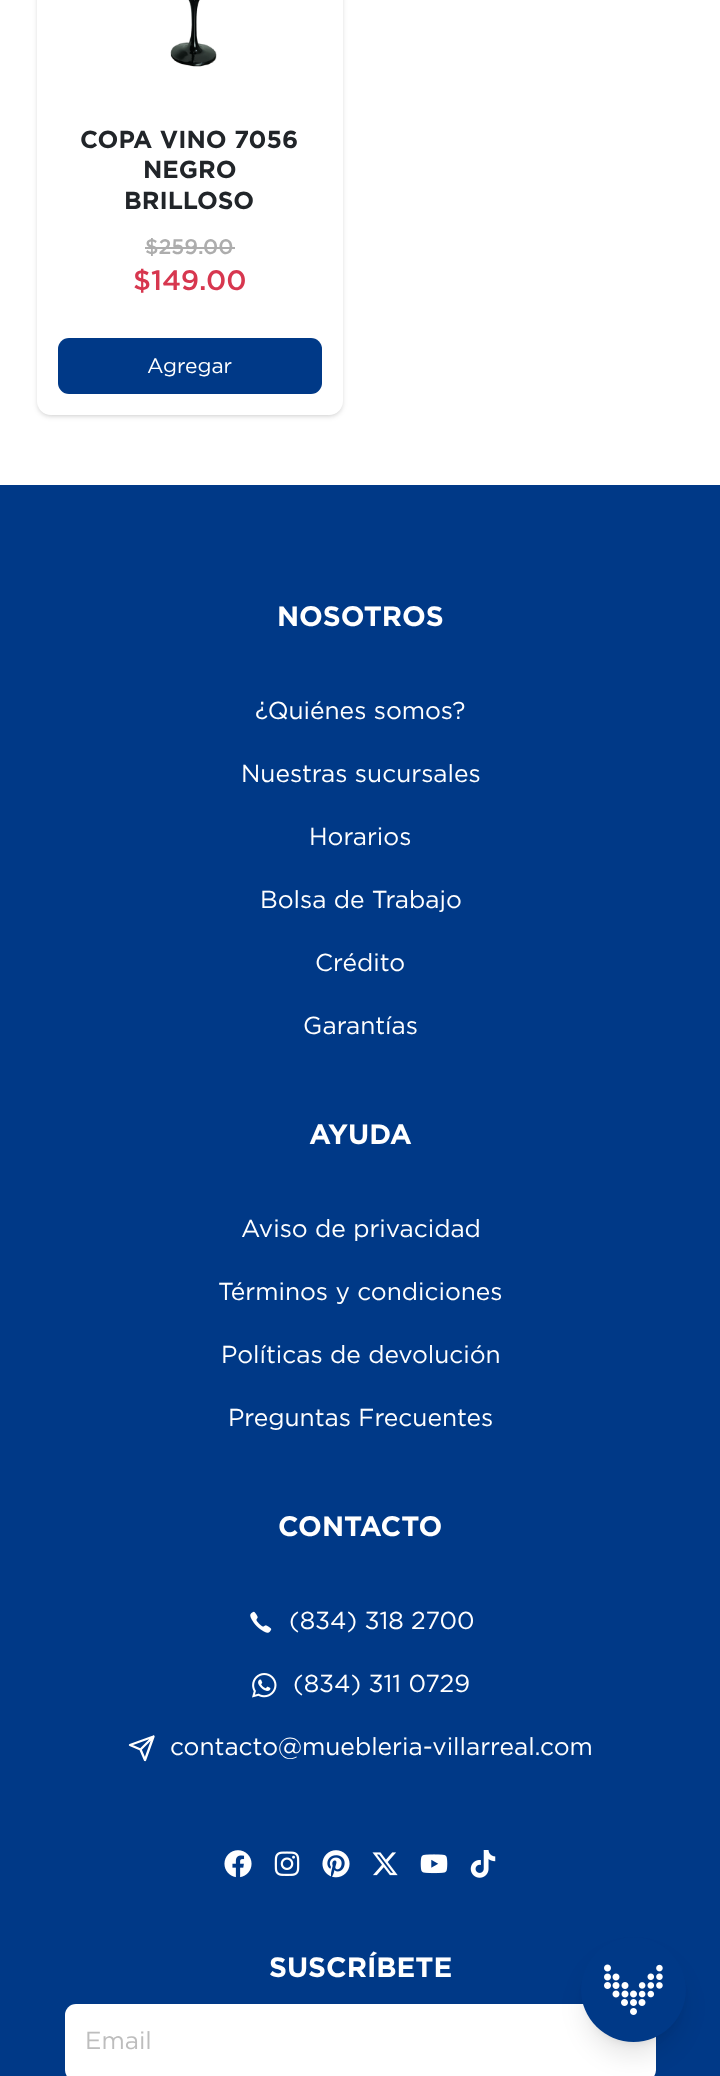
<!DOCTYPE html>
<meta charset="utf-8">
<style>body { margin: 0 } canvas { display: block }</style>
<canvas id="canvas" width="720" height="2076"></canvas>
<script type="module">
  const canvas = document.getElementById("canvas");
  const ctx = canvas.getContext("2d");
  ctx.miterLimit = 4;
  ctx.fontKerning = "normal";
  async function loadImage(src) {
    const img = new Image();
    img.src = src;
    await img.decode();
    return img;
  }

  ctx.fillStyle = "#ffffff";
  ctx.fillRect(0, 0, 720, 2076);
  ctx.fillStyle = "rgba(0, 0, 0, 0.1)";
  ctx.filter = "blur(2px)";
  ctx.beginPath();
  ctx.roundRect(39, -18, 302, 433, 12);
  ctx.fill();
  ctx.filter = "none";
  ctx.filter = "blur(2.5px)";
  ctx.beginPath();
  ctx.roundRect(37, -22, 306, 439, 14);
  ctx.fill();
  ctx.filter = "none";
  ctx.fillStyle = "#ffffff";
  ctx.beginPath();
  ctx.roundRect(37, -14, 306, 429, 14);
  ctx.fill();
  ctx.drawImage(await loadImage("img1.png"), 170, 0, 47, 67);
  ctx.font = "bold 24.5px Gotham";
  ctx.fillStyle = "#212529";
  ctx.fillText("COPA VINO 7056", 80, 148);
  ctx.fillText("NEGRO", 143, 178);
  ctx.fillText("BRILLOSO", 124, 209);
  ctx.font = "500 21px Gotham";
  ctx.fillStyle = "#adadad";
  ctx.fillText("$259.00", 145, 254);
  ctx.fillRect(145, 247, 90, 2);
  ctx.font = "500 28px Gotham";
  ctx.fillStyle = "#d7374f";
  ctx.fillText("$149.00", 133, 290);
  ctx.fillStyle = "#003987";
  ctx.beginPath();
  ctx.roundRect(58, 338, 264, 56, 11);
  ctx.fill();
  ctx.font = "21px Gotham";
  ctx.fillStyle = "#ffffff";
  ctx.fillText("Agregar", 147, 373);
  ctx.fillStyle = "#003987";
  ctx.fillRect(0, 485, 720, 1591);
  ctx.font = "bold 28px Gotham";
  ctx.fillStyle = "#ffffff";
  ctx.fillText("NOSOTROS", 277, 626);
  ctx.font = "24.5px Gotham";
  ctx.fillText("¿Quiénes somos?", 255, 719);
  ctx.fillText("Nuestras sucursales", 241, 782);
  ctx.fillText("Horarios", 309, 845);
  ctx.fillText("Bolsa de Trabajo", 260, 908);
  ctx.fillText("Crédito", 315, 971);
  ctx.fillText("Garantías", 303, 1034);
  ctx.font = "bold 28px Gotham";
  ctx.fillText("AYUDA", 309, 1144);
  ctx.font = "24.5px Gotham";
  ctx.fillText("Aviso de privacidad", 241, 1237);
  ctx.fillText("Términos y condiciones", 218, 1300);
  ctx.fillText("Políticas de devolución", 221, 1363);
  ctx.fillText("Preguntas Frecuentes", 228, 1426);
  ctx.font = "bold 28px Gotham";
  ctx.fillText("CONTACTO", 278, 1536);
  ctx.drawImage(await loadImage("img2.png"), 250, 1611, 22, 22);
  ctx.font = "24.5px Gotham";
  ctx.fillText("(834) 318 2700", 289, 1629);
  ctx.drawImage(await loadImage("img3.png"), 252, 1673, 25, 25);
  ctx.fillText("(834) 311 0729", 293, 1692);
  ctx.beginPath();
  ctx.moveTo(153.5, 1736.5);
  ctx.lineTo(140.5, 1749.5);
  ctx.moveTo(153.5, 1736.5);
  ctx.lineTo(145, 1760);
  ctx.lineTo(140.5, 1749.5);
  ctx.lineTo(130, 1745);
  ctx.closePath();
  ctx.strokeStyle = "#ffffff";
  ctx.lineWidth = 2.3;
  ctx.lineCap = "round";
  ctx.lineJoin = "round";
  ctx.stroke();
  ctx.fillText("contacto@muebleria-villarreal.com", 170, 1755);
  ctx.drawImage(await loadImage("img4.png"), 224, 1850, 28, 28);
  ctx.drawImage(await loadImage("img5.png"), 274, 1851, 26, 25);
  ctx.drawImage(await loadImage("img6.png"), 322, 1850, 28, 28);
  ctx.drawImage(await loadImage("img7.png"), 372, 1852, 26, 24);
  ctx.drawImage(await loadImage("img8.png"), 420, 1854, 28, 20);
  ctx.drawImage(await loadImage("img9.png"), 470, 1850, 26, 28);
  ctx.font = "bold 28px Gotham";
  ctx.fillText("SUSCRÍBETE", 269, 1977);
  ctx.beginPath();
  ctx.roundRect(65, 2004, 591, 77, 11);
  ctx.fill();
  ctx.font = "24.5px Gotham";
  ctx.fillStyle = "#bdbdbd";
  ctx.fillText("Email", 85, 2049);
  ctx.fillStyle = "rgba(0, 0, 0, 0.1)";
  ctx.filter = "blur(5px)";
  ctx.beginPath();
  ctx.roundRect(588, 1951, 91, 91, 45.5);
  ctx.fill();
  ctx.filter = "none";
  ctx.filter = "blur(13px)";
  ctx.beginPath();
  ctx.roundRect(586, 1960, 95, 95, 47.5);
  ctx.fill();
  ctx.filter = "none";
  ctx.fillStyle = "#003987";
  ctx.beginPath();
  ctx.arc(633.5, 1989.5, 52.5, 0, Math.PI * 2);
  ctx.fill();
  ctx.drawImage(await loadImage("img10.png"), 604, 1964, 59, 51);
</script>
